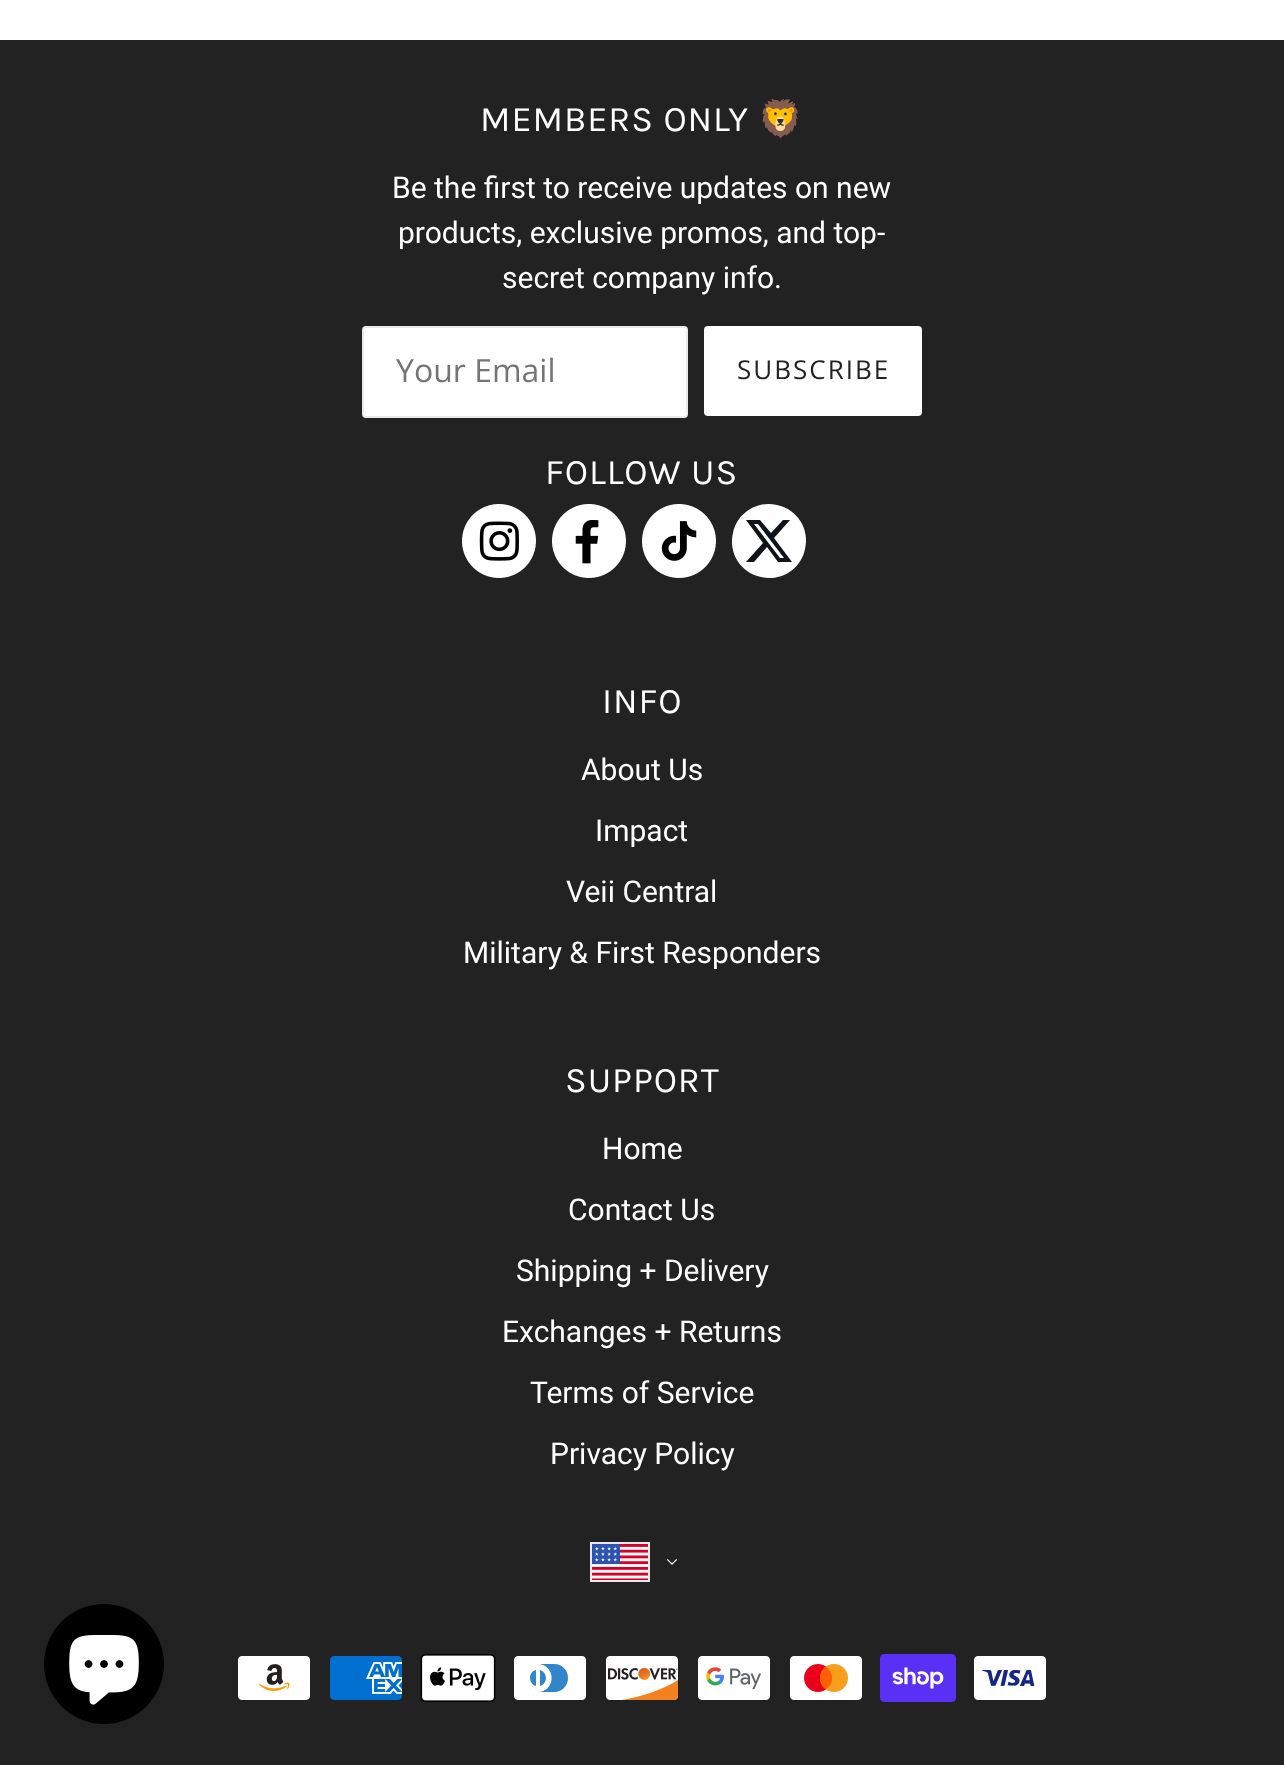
<!DOCTYPE html>
<meta charset="utf-8">
<style>body { margin: 0 } canvas { display: block }</style>
<canvas id="canvas" width="1284" height="1765"></canvas>
<script type="module">
  const canvas = document.getElementById("canvas");
  const ctx = canvas.getContext("2d");
  ctx.miterLimit = 4;
  ctx.fontKerning = "normal";
  async function loadImage(src) {
    const img = new Image();
    img.src = src;
    await img.decode();
    return img;
  }

  ctx.fillStyle = "#ffffff";
  ctx.fillRect(0, 0, 1284, 1765);
  ctx.fillStyle = "#222222";
  ctx.fillRect(0, 40, 1284, 1725);
  ctx.letterSpacing = "0.9px";
  ctx.font = "36px Karla";
  ctx.fillStyle = "#ffffff";
  ctx.fillText("MEMBERS ONLY", 480, 131);
  ctx.font = "36px Noto Color Emoji";
  ctx.fillText("🦁", 758, 131);
  ctx.letterSpacing = "0px";
  ctx.font = "30px Roboto";
  ctx.fillText("Be the first to receive updates on new", 392, 198);
  ctx.fillText("products, exclusive promos, and top-", 398, 243);
  ctx.fillText("secret company info.", 502, 288);
  ctx.beginPath();
  ctx.roundRect(363, 327, 324, 90, 3);
  ctx.fill();
  ctx.strokeStyle = "#eaeaea";
  ctx.lineWidth = 2;
  ctx.stroke();
  ctx.font = "32px Open Sans";
  ctx.fillStyle = "#757575";
  ctx.fillText("Your Email", 396, 382);
  ctx.fillStyle = "#ffffff";
  ctx.beginPath();
  ctx.roundRect(704, 326, 218, 90, 4);
  ctx.fill();
  ctx.letterSpacing = "2px";
  ctx.font = "26px Open Sans";
  ctx.fillStyle = "#222222";
  ctx.fillText("SUBSCRIBE", 737, 379);
  ctx.letterSpacing = "0.9px";
  ctx.font = "36px Karla";
  ctx.fillStyle = "#ffffff";
  ctx.fillText("FOLLOW US", 545, 484);
  ctx.drawImage(await loadImage("img1.png"), 462, 504, 74, 74);
  ctx.drawImage(await loadImage("img2.png"), 552, 504, 74, 74);
  ctx.drawImage(await loadImage("img3.png"), 642, 504, 74, 74);
  ctx.beginPath();
  ctx.moveTo(733, 533);
  ctx.bezierCurveTo(737, 513, 757, 500, 777, 505);
  ctx.bezierCurveTo(797, 509, 810, 529, 805, 549);
  ctx.bezierCurveTo(801, 569, 781, 582, 761, 577);
  ctx.bezierCurveTo(741, 573, 728, 553, 733, 533);
  ctx.closePath();
  ctx.fill();
  ctx.fillStyle = "#0f141a";
  ctx.beginPath();
  ctx.moveTo(780, 558);
  ctx.lineTo(784, 558);
  ctx.lineTo(758, 524);
  ctx.lineTo(754, 524);
  ctx.closePath();
  ctx.moveTo(783, 520);
  ctx.lineTo(790, 520);
  ctx.lineTo(774, 538);
  ctx.lineTo(792, 562);
  ctx.lineTo(778, 562);
  ctx.lineTo(767, 547);
  ctx.lineTo(754, 562);
  ctx.lineTo(746, 562);
  ctx.lineTo(763, 543);
  ctx.lineTo(746, 520);
  ctx.lineTo(760, 520);
  ctx.lineTo(771, 533);
  ctx.closePath();
  ctx.fill();
  ctx.fillStyle = "#ffffff";
  ctx.fillText("INFO", 602, 713);
  ctx.letterSpacing = "0px";
  ctx.font = "30px Roboto";
  ctx.fillText("About Us", 581, 780);
  ctx.fillText("Impact", 595, 841);
  ctx.fillText("Veii Central", 566, 902);
  ctx.fillText("Military & First Responders", 463, 963);
  ctx.letterSpacing = "0.9px";
  ctx.font = "36px Karla";
  ctx.fillText("SUPPORT", 565, 1092);
  ctx.letterSpacing = "0px";
  ctx.font = "30px Roboto";
  ctx.fillText("Home", 602, 1159);
  ctx.fillText("Contact Us", 568, 1220);
  ctx.fillText("Shipping + Delivery", 516, 1281);
  ctx.fillText("Exchanges + Returns", 502, 1342);
  ctx.fillText("Terms of Service", 530, 1403);
  ctx.fillText("Privacy Policy", 550, 1464);
  ctx.drawImage(await loadImage("img4.png"), 592, 1544, 56, 36);
  ctx.strokeRect(591, 1543, 58, 38);
  ctx.drawImage(await loadImage("img5.png"), 667, 1559, 10, 6);
  ctx.drawImage(await loadImage("img6.png"), 238, 1656, 72, 44);
  ctx.drawImage(await loadImage("img7.png"), 330, 1656, 72, 44);
  ctx.drawImage(await loadImage("img8.png"), 420, 1654, 76, 48);
  ctx.drawImage(await loadImage("img9.png"), 514, 1656, 72, 44);
  ctx.drawImage(await loadImage("img10.png"), 606, 1656, 73, 44);
  ctx.drawImage(await loadImage("img11.png"), 698, 1656, 72, 44);
  ctx.drawImage(await loadImage("img12.png"), 790, 1656, 72, 44);
  ctx.drawImage(await loadImage("img13.png"), 880, 1654, 76, 48);
  ctx.drawImage(await loadImage("img14.png"), 974, 1656, 72, 44);
  ctx.fillStyle = "#000000";
  ctx.beginPath();
  ctx.arc(104, 1664, 60, 0, Math.PI * 2);
  ctx.fill();
  ctx.drawImage(await loadImage("img15.png"), 69, 1635, 70, 70);
</script>
